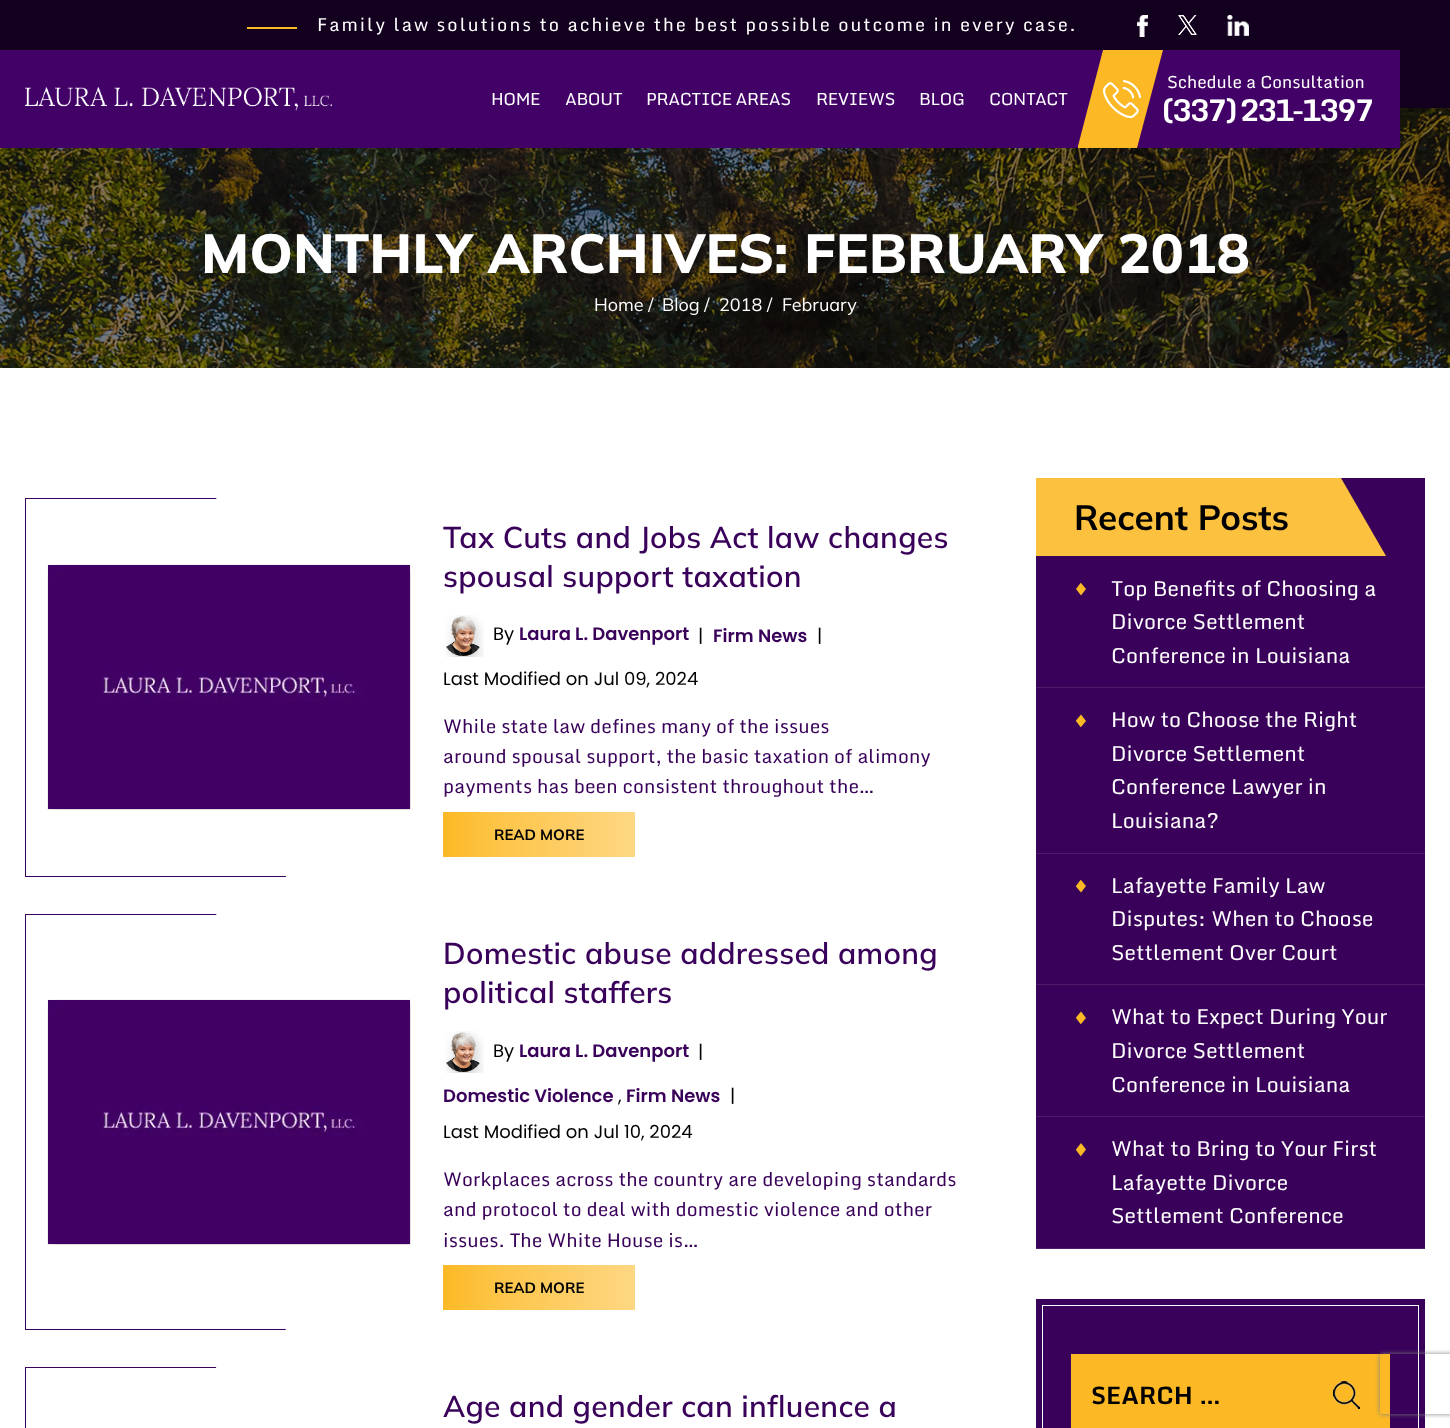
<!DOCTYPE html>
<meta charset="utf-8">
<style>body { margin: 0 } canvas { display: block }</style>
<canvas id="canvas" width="1450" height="1428"></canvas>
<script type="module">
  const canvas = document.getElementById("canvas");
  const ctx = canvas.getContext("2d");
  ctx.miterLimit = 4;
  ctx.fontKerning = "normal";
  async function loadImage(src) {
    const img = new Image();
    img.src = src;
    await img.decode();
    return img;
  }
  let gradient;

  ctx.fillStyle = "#ffffff";
  ctx.fillRect(0, 0, 1450, 1428);
  ctx.fillStyle = "#13001f";
  ctx.fillRect(0, 0, 1450, 108);
  ctx.fillStyle = "#fcb925";
  ctx.fillRect(247, 27, 50, 2);
  ctx.letterSpacing = "2px";
  ctx.font = "18px Monda";
  ctx.fillStyle = "#ffffff";
  ctx.fillText("Family law solutions to achieve the best possible outcome in every case.", 317, 31);
  ctx.drawImage(await loadImage("img1.png"), 1137, 15, 11, 22);
  ctx.drawImage(await loadImage("img2.png"), 1178, 15, 19, 20);
  ctx.drawImage(await loadImage("img3.png"), 1227, 15, 22, 21);
  ctx.drawImage(await loadImage("img6.png"), 0, 108, 1450, 260);
  ctx.fillStyle = "#410166";
  ctx.fillRect(0, 50, 1400, 98);
  ctx.drawImage(await loadImage("img4.png"), 25, 87, 307, 24);
  ctx.letterSpacing = "-0.4px";
  ctx.font = "17px Monda";
  ctx.fillStyle = "#ffffff";
  ctx.fillText("HOME", 491, 105);
  ctx.fillText("ABOUT", 565, 105);
  ctx.fillText("PRACTICE AREAS", 646, 105);
  ctx.fillText("REVIEWS", 816, 105);
  ctx.fillText("BLOG", 919, 105);
  ctx.fillText("CONTACT", 989, 105);
  ctx.fillStyle = "#fcb925";
  ctx.beginPath();
  ctx.moveTo(1103, 50);
  ctx.lineTo(1078, 146);
  ctx.lineTo(1078, 148);
  ctx.lineTo(1137, 148);
  ctx.lineTo(1163, 50);
  ctx.closePath();
  ctx.fill();
  ctx.letterSpacing = "0px";
  ctx.fillStyle = "#ffffff";
  ctx.fillText("Schedule a Consultation", 1167, 88);
  ctx.drawImage(await loadImage("img5.png"), 1103, 80, 38, 38);
  ctx.letterSpacing = "-3.25px";
  ctx.font = "bold 30px Monda";
  ctx.fillText("(337) 231-1397", 1161, 121);
  ctx.letterSpacing = "0px";
  ctx.font = "800 55px Mulish";
  ctx.fillText("MONTHLY ARCHIVES: FEBRUARY 2018", 201, 273);
  ctx.font = "18px Mulish";
  ctx.fillText("Home /", 594, 311);
  ctx.fillText("Blog /", 662, 311);
  ctx.fillText("2018 /", 719, 311);
  ctx.fillText("February", 782, 311);
  ctx.strokeStyle = "#390159";
  ctx.strokeRect(25.5, 498.5, 962, 378);
  ctx.beginPath();
  ctx.moveTo(216, 497);
  ctx.lineTo(286, 877);
  ctx.lineTo(988, 877);
  ctx.lineTo(988, 497);
  ctx.closePath();
  ctx.fill();
  ctx.drawImage(await loadImage("img7.png"), 47, 564, 364, 246);
  ctx.letterSpacing = "0.3px";
  ctx.font = "600 30px Mulish";
  ctx.fillStyle = "#390159";
  ctx.fillText("Tax Cuts and Jobs Act law changes", 443, 548);
  ctx.fillText("spousal support taxation", 443, 587);
  ctx.drawImage(await loadImage("img8.png"), 445, 615, 39, 42);
  ctx.letterSpacing = "0px";
  ctx.font = "18px Poppins";
  ctx.fillStyle = "#000000";
  ctx.fillText("By", 493, 640);
  ctx.font = "600 18px Poppins";
  ctx.fillStyle = "#390159";
  ctx.fillText("Laura L. Davenport", 519, 640);
  ctx.font = "18px Poppins";
  ctx.fillStyle = "#000000";
  ctx.fillText("|", 698, 642);
  ctx.font = "600 18px Poppins";
  ctx.fillStyle = "#390159";
  ctx.fillText("Firm News", 713, 642);
  ctx.font = "18px Poppins";
  ctx.fillStyle = "#000000";
  ctx.fillText("|", 817, 642);
  ctx.fillText("Last Modified on Jul 09, 2024", 443, 685);
  ctx.letterSpacing = "0.1px";
  ctx.font = "19px Monda";
  ctx.fillStyle = "#390159";
  ctx.fillText("While state law defines many of the issues", 443, 733);
  ctx.fillText("around spousal support, the basic taxation of alimony", 443, 763);
  ctx.fillText("payments has been consistent throughout the…", 443, 793);
  gradient = ctx.createLinearGradient(443, 835, 635, 835);
  gradient.addColorStop(0, "#fcb925");
  gradient.addColorStop(0.3, "#fdc549");
  gradient.addColorStop(1, "#fed783");
  ctx.fillStyle = gradient;
  ctx.fillRect(443, 812, 192, 45);
  ctx.letterSpacing = "0px";
  ctx.font = "bold 15px Mulish";
  ctx.fillStyle = "#000000";
  ctx.fillText("READ MORE", 494, 840);
  ctx.strokeRect(25.5, 914.5, 962, 415);
  ctx.fillStyle = "#ffffff";
  ctx.beginPath();
  ctx.moveTo(216, 913);
  ctx.lineTo(988, 913);
  ctx.lineTo(988, 1331);
  ctx.lineTo(286, 1331);
  ctx.closePath();
  ctx.fill();
  ctx.drawImage(await loadImage("img7.png"), 47, 999, 364, 246);
  ctx.letterSpacing = "0.3px";
  ctx.font = "600 30px Mulish";
  ctx.fillStyle = "#390159";
  ctx.fillText("Domestic abuse addressed among", 443, 964);
  ctx.fillText("political staffers", 443, 1003);
  ctx.drawImage(await loadImage("img9.png"), 445, 1031, 39, 42);
  ctx.letterSpacing = "0px";
  ctx.font = "18px Poppins";
  ctx.fillStyle = "#000000";
  ctx.fillText("By", 493, 1057);
  ctx.font = "600 18px Poppins";
  ctx.fillStyle = "#390159";
  ctx.fillText("Laura L. Davenport", 519, 1057);
  ctx.font = "18px Poppins";
  ctx.fillStyle = "#000000";
  ctx.fillText("|", 698, 1058);
  ctx.font = "600 18px Poppins";
  ctx.fillStyle = "#390159";
  ctx.fillText("Domestic Violence", 443, 1102);
  ctx.font = "18px Poppins";
  ctx.fillStyle = "#000000";
  ctx.fillText(",", 618, 1102);
  ctx.font = "600 18px Poppins";
  ctx.fillStyle = "#390159";
  ctx.fillText("Firm News", 626, 1102);
  ctx.font = "18px Poppins";
  ctx.fillStyle = "#000000";
  ctx.fillText("|", 730, 1102);
  ctx.fillText("Last Modified on Jul 10, 2024", 443, 1138);
  ctx.letterSpacing = "0.1px";
  ctx.font = "19px Monda";
  ctx.fillStyle = "#390159";
  ctx.fillText("Workplaces across the country are developing standards", 443, 1186);
  ctx.fillText("and protocol to deal with domestic violence and other", 443, 1216);
  ctx.fillText("issues. The White House is…", 443, 1247);
  gradient = ctx.createLinearGradient(443, 1288, 635, 1288);
  gradient.addColorStop(0, "#fcb925");
  gradient.addColorStop(0.3, "#fdc549");
  gradient.addColorStop(1, "#fed783");
  ctx.fillStyle = gradient;
  ctx.fillRect(443, 1265, 192, 45);
  ctx.letterSpacing = "0px";
  ctx.font = "bold 15px Mulish";
  ctx.fillStyle = "#000000";
  ctx.fillText("READ MORE", 494, 1293);
  ctx.strokeRect(25.5, 1367.5, 962, 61);
  ctx.fillStyle = "#ffffff";
  ctx.beginPath();
  ctx.moveTo(988, 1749);
  ctx.lineTo(286, 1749);
  ctx.lineTo(216, 1367);
  ctx.lineTo(988, 1367);
  ctx.closePath();
  ctx.fill();
  ctx.letterSpacing = "0.3px";
  ctx.font = "600 30px Mulish";
  ctx.fillStyle = "#390159";
  ctx.fillText("Age and gender can influence a", 443, 1417);
  ctx.fillRect(1036, 478, 389, 770);
  ctx.fillStyle = "#fcc13e";
  ctx.beginPath();
  ctx.moveTo(1036, 478);
  ctx.lineTo(1341, 478);
  ctx.lineTo(1386, 556);
  ctx.lineTo(1036, 556);
  ctx.closePath();
  ctx.fill();
  ctx.letterSpacing = "0px";
  ctx.font = "bold 35px Mulish";
  ctx.fillStyle = "#000000";
  ctx.fillText("Recent Posts", 1074, 530);
  ctx.fillStyle = "#4d1b6a";
  ctx.fillRect(1036, 687, 389, 1);
  ctx.fillStyle = "#fcb925";
  ctx.beginPath();
  ctx.moveTo(1076, 589);
  ctx.lineTo(1080.5, 583);
  ctx.lineTo(1081, 583);
  ctx.lineTo(1086, 589);
  ctx.lineTo(1081, 595.5);
  ctx.closePath();
  ctx.fill();
  ctx.font = "21px Monda";
  ctx.fillStyle = "#ffffff";
  ctx.fillText("Top Benefits of Choosing a", 1111, 596);
  ctx.fillText("Divorce Settlement", 1111, 629);
  ctx.fillText("Conference in Louisiana", 1111, 663);
  ctx.fillStyle = "#4d1b6a";
  ctx.fillRect(1036, 853, 389, 1);
  ctx.fillStyle = "#fcb925";
  ctx.beginPath();
  ctx.moveTo(1081, 714.5);
  ctx.lineTo(1086, 721);
  ctx.lineTo(1081, 727);
  ctx.lineTo(1080.5, 727);
  ctx.lineTo(1076, 721);
  ctx.lineTo(1076, 720.5);
  ctx.closePath();
  ctx.fill();
  ctx.fillStyle = "#ffffff";
  ctx.fillText("How to Choose the Right", 1111, 727);
  ctx.fillText("Divorce Settlement", 1111, 761);
  ctx.fillText("Conference Lawyer in", 1111, 794);
  ctx.fillText("Louisiana?", 1111, 828);
  ctx.fillStyle = "#4d1b6a";
  ctx.fillRect(1036, 984, 389, 1);
  ctx.fillStyle = "#fcb925";
  ctx.beginPath();
  ctx.moveTo(1076, 886);
  ctx.lineTo(1080.5, 880);
  ctx.lineTo(1081, 880);
  ctx.lineTo(1086, 886);
  ctx.lineTo(1081, 892.5);
  ctx.lineTo(1076, 886.5);
  ctx.closePath();
  ctx.fill();
  ctx.fillStyle = "#ffffff";
  ctx.fillText("Lafayette Family Law", 1111, 893);
  ctx.fillText("Disputes: When to Choose", 1111, 926);
  ctx.fillText("Settlement Over Court", 1111, 960);
  ctx.fillStyle = "#4d1b6a";
  ctx.fillRect(1036, 1116, 389, 1);
  ctx.fillStyle = "#fcb925";
  ctx.beginPath();
  ctx.moveTo(1081, 1011.5);
  ctx.lineTo(1086, 1018);
  ctx.lineTo(1081, 1024);
  ctx.lineTo(1080.5, 1024);
  ctx.lineTo(1076, 1018);
  ctx.lineTo(1076, 1017.5);
  ctx.closePath();
  ctx.fill();
  ctx.fillStyle = "#ffffff";
  ctx.fillText("What to Expect During Your", 1111, 1024);
  ctx.fillText("Divorce Settlement", 1111, 1058);
  ctx.fillText("Conference in Louisiana", 1111, 1092);
  ctx.fillStyle = "#4d1b6a";
  ctx.fillRect(1036, 1248, 389, 1);
  ctx.fillStyle = "#fcb925";
  ctx.beginPath();
  ctx.moveTo(1081, 1143);
  ctx.lineTo(1086, 1149.5);
  ctx.lineTo(1081, 1156);
  ctx.lineTo(1080.5, 1156);
  ctx.lineTo(1076, 1150);
  ctx.lineTo(1076, 1149.5);
  ctx.closePath();
  ctx.fill();
  ctx.fillStyle = "#ffffff";
  ctx.fillText("What to Bring to Your First", 1111, 1156);
  ctx.fillText("Lafayette Divorce", 1111, 1190);
  ctx.fillText("Settlement Conference", 1111, 1223);
  ctx.fillStyle = "#390159";
  ctx.fillRect(1036, 1299, 389, 129);
  ctx.strokeStyle = "#ffffff";
  ctx.strokeRect(1042.5, 1305.5, 376, 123);
  ctx.fillStyle = "#fcb925";
  ctx.fillRect(1071, 1354, 319, 74);
  ctx.font = "bold 24px Monda";
  ctx.fillStyle = "#000000";
  ctx.fillText("SEARCH …", 1091, 1404);
  ctx.drawImage(await loadImage("img10.png"), 1333, 1381, 27, 28);
  ctx.save();
  ctx.beginPath();
  ctx.moveTo(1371, 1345);
  ctx.lineTo(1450, 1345);
  ctx.lineTo(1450, 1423);
  ctx.lineTo(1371, 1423);
  ctx.closePath();
  ctx.moveTo(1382, 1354);
  ctx.lineTo(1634, 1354);
  ctx.bezierCurveTo(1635, 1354, 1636, 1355, 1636, 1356);
  ctx.lineTo(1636, 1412);
  ctx.bezierCurveTo(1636, 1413, 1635, 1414, 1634, 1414);
  ctx.lineTo(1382, 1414);
  ctx.bezierCurveTo(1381, 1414, 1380, 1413, 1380, 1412);
  ctx.lineTo(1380, 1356);
  ctx.bezierCurveTo(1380, 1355, 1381, 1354, 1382, 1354);
  ctx.closePath();
  ctx.clip("evenodd");
  ctx.fillStyle = "#808080";
  ctx.filter = "blur(2.5px)";
  ctx.beginPath();
  ctx.roundRect(1380, 1354, 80, 60, 2);
  ctx.fill();
  ctx.filter = "none";
  ctx.restore();
</script>
